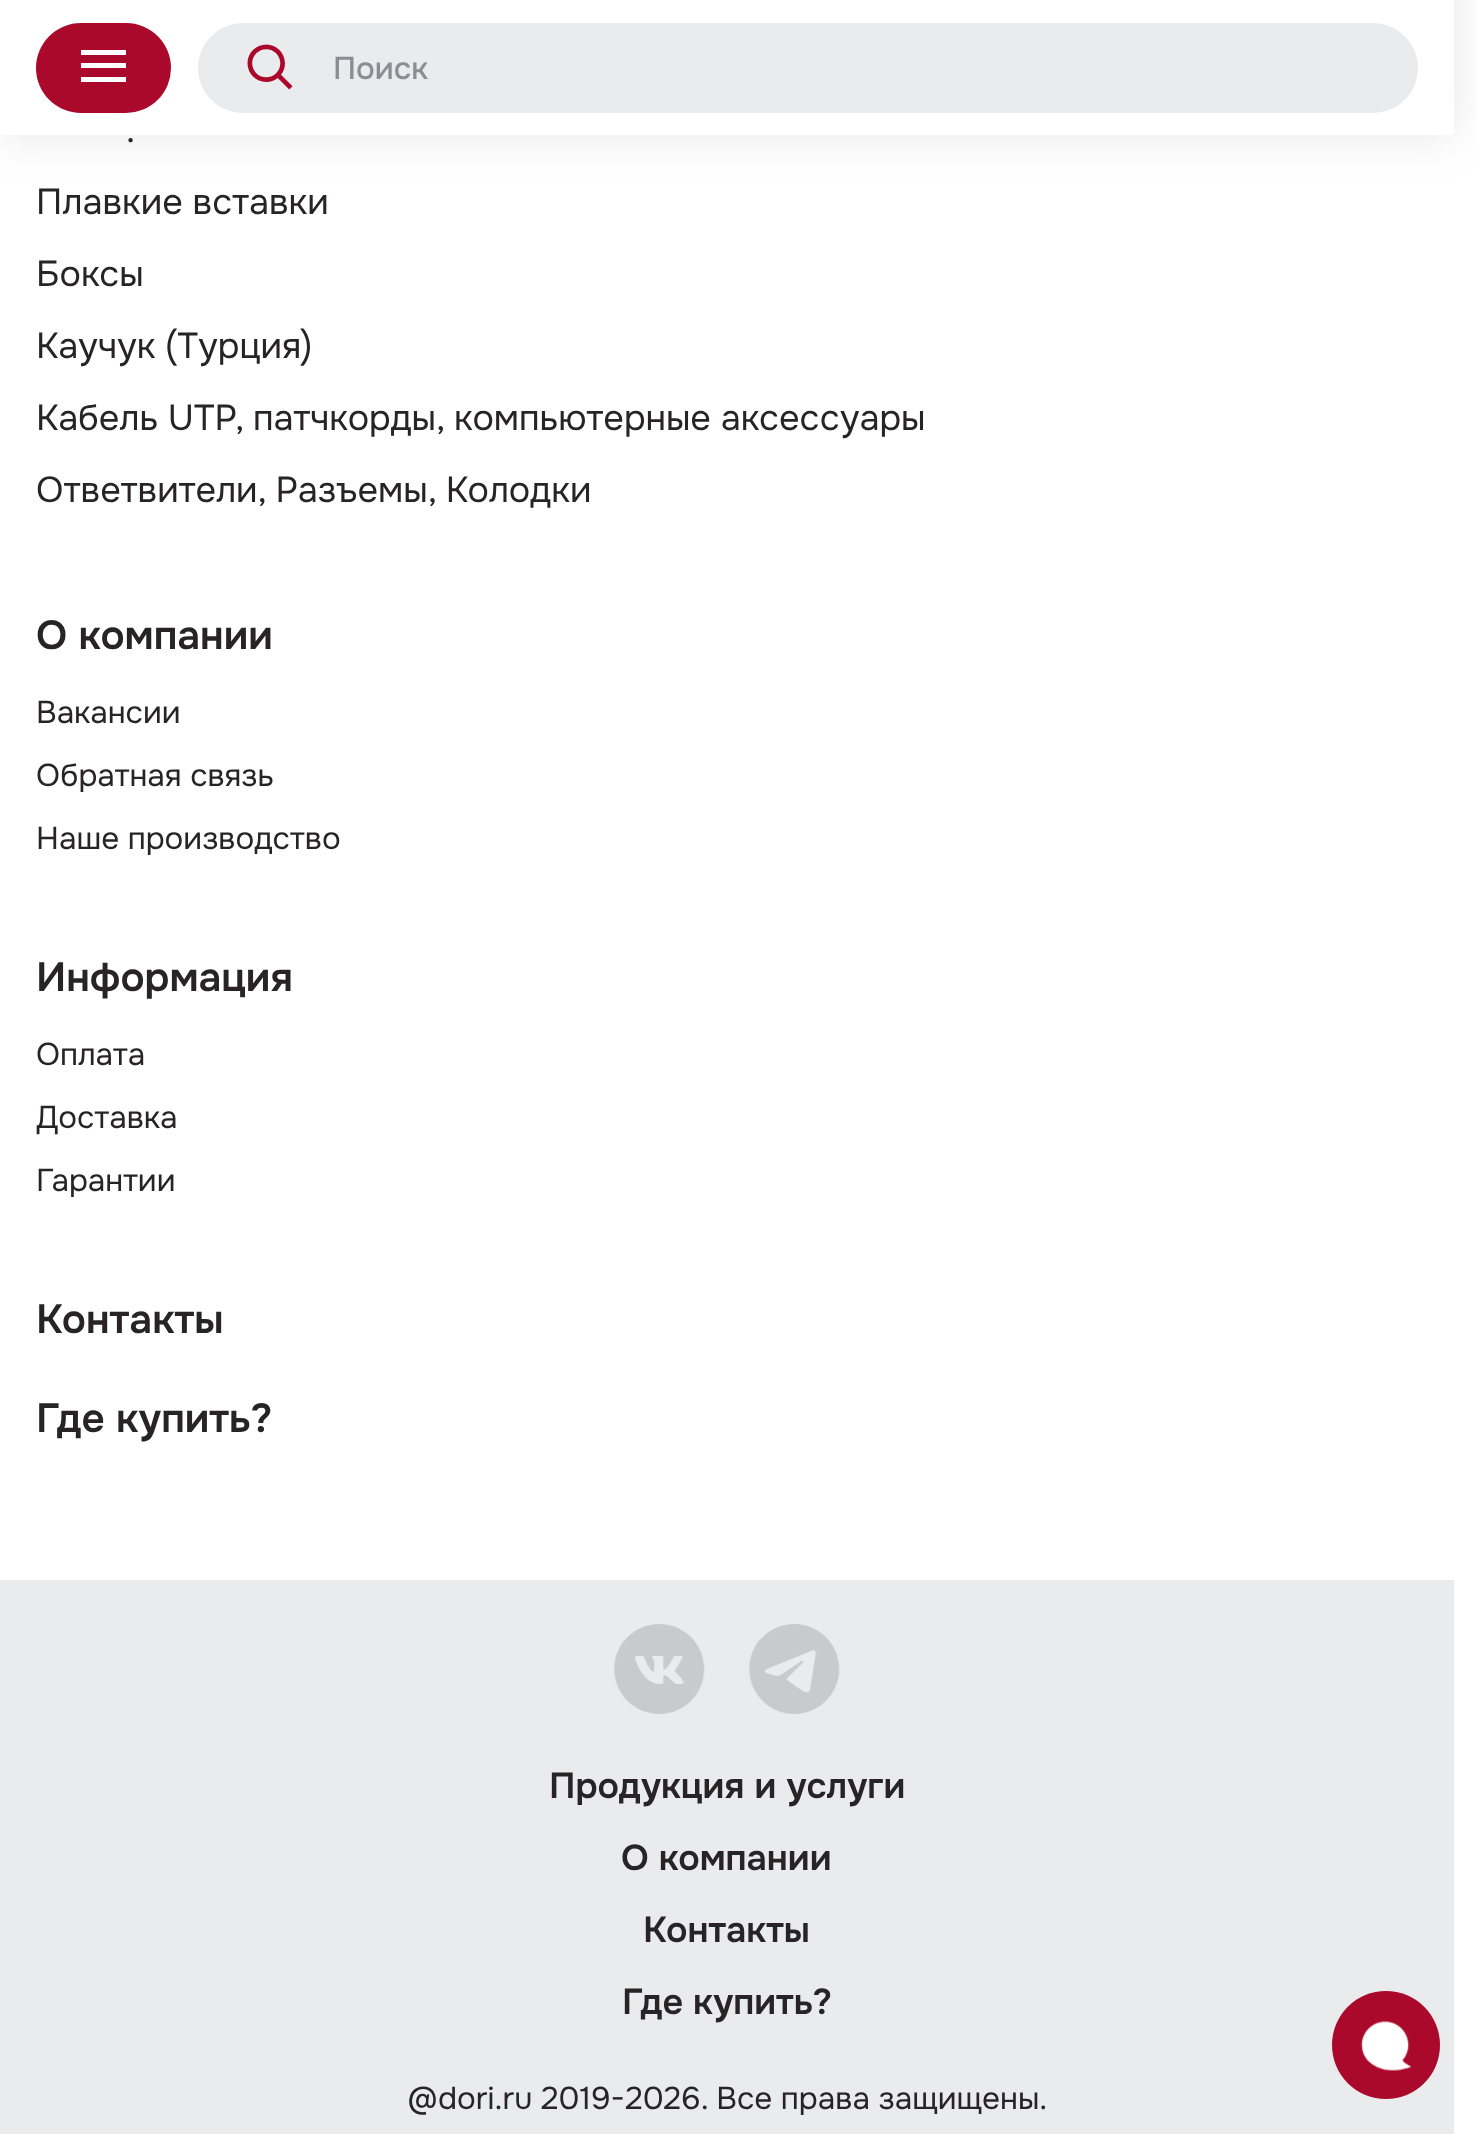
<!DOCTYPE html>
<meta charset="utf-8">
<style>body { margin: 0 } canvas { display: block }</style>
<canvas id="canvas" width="1476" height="2134"></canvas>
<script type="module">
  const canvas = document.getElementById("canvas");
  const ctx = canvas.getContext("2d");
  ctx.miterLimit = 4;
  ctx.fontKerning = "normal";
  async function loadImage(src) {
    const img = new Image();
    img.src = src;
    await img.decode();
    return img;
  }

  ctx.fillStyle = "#ffffff";
  ctx.fillRect(0, 0, 1476, 2134);
  ctx.fillStyle = "rgba(130, 130, 130, 0.2)";
  ctx.filter = "blur(22.5px)";
  ctx.beginPath();
  ctx.rect(0, -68, 1454, 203);
  ctx.fill();
  ctx.filter = "none";
  ctx.fillStyle = "#ffffff";
  ctx.fillRect(0, 0, 1454, 135);
  ctx.fillStyle = "#ab092b";
  ctx.beginPath();
  ctx.roundRect(36, 23, 135, 90, 45);
  ctx.fill();
  ctx.fillStyle = "#ffffff";
  ctx.fillRect(81, 50, 45, 5);
  ctx.fillRect(81, 63, 45, 5);
  ctx.fillRect(81, 77, 45, 5);
  ctx.fillStyle = "#eaebed";
  ctx.beginPath();
  ctx.roundRect(198, 23, 1220, 90, 45);
  ctx.fill();
  ctx.drawImage(await loadImage("img1.png"), 247, 44, 46, 46);
  ctx.font = "500 31.5px Onest";
  ctx.fillStyle = "#8c8d94";
  ctx.fillText("Поиск", 333, 79);
  ctx.font = "36px Onest";
  ctx.fillStyle = "#282425";
  ctx.fillText(".", 126, 142);
  ctx.fillText("Плавкие вставки", 36, 214);
  ctx.fillText("Боксы", 36, 286);
  ctx.fillText("Каучук (Турция)", 36, 358);
  ctx.fillText("Кабель UTP, патчкорды, компьютерные аксессуары", 36, 430);
  ctx.fillText("Ответвители, Разъемы, Колодки", 36, 502);
  ctx.font = "600 40.5px Onest";
  ctx.fillText("О компании", 36, 649);
  ctx.font = "31.5px Onest";
  ctx.fillText("Вакансии", 36, 723);
  ctx.fillText("Обратная связь", 36, 786);
  ctx.fillText("Наше производство", 36, 849);
  ctx.font = "600 40.5px Onest";
  ctx.fillText("Информация", 36, 991);
  ctx.font = "31.5px Onest";
  ctx.fillText("Оплата", 36, 1065);
  ctx.fillText("Доставка", 36, 1128);
  ctx.fillText("Гарантии", 36, 1191);
  ctx.font = "600 40.5px Onest";
  ctx.fillText("Контакты", 36, 1333);
  ctx.fillText("Где купить?", 36, 1432);
  ctx.fillStyle = "#eaebed";
  ctx.fillRect(0, 1580, 1454, 554);
  ctx.drawImage(await loadImage("img2.png"), 614, 1624, 91, 90);
  ctx.drawImage(await loadImage("img3.png"), 749, 1624, 91, 90);
  ctx.font = "600 36px Onest";
  ctx.fillStyle = "#282425";
  ctx.fillText("Продукция и услуги", 549, 1798);
  ctx.fillText("О компании", 621, 1870);
  ctx.fillText("Контакты", 643, 1942);
  ctx.fillText("Где купить?", 622, 2014);
  ctx.font = "31.5px Onest";
  ctx.fillText("@dori.ru 2019-2026. Все права защищены.", 407, 2109);
  ctx.fillStyle = "#ab092b";
  ctx.beginPath();
  ctx.arc(1386, 2045, 54, 0, Math.PI * 2);
  ctx.fill();
  ctx.drawImage(await loadImage("img4.png"), 1361, 2021, 51, 50);
</script>
